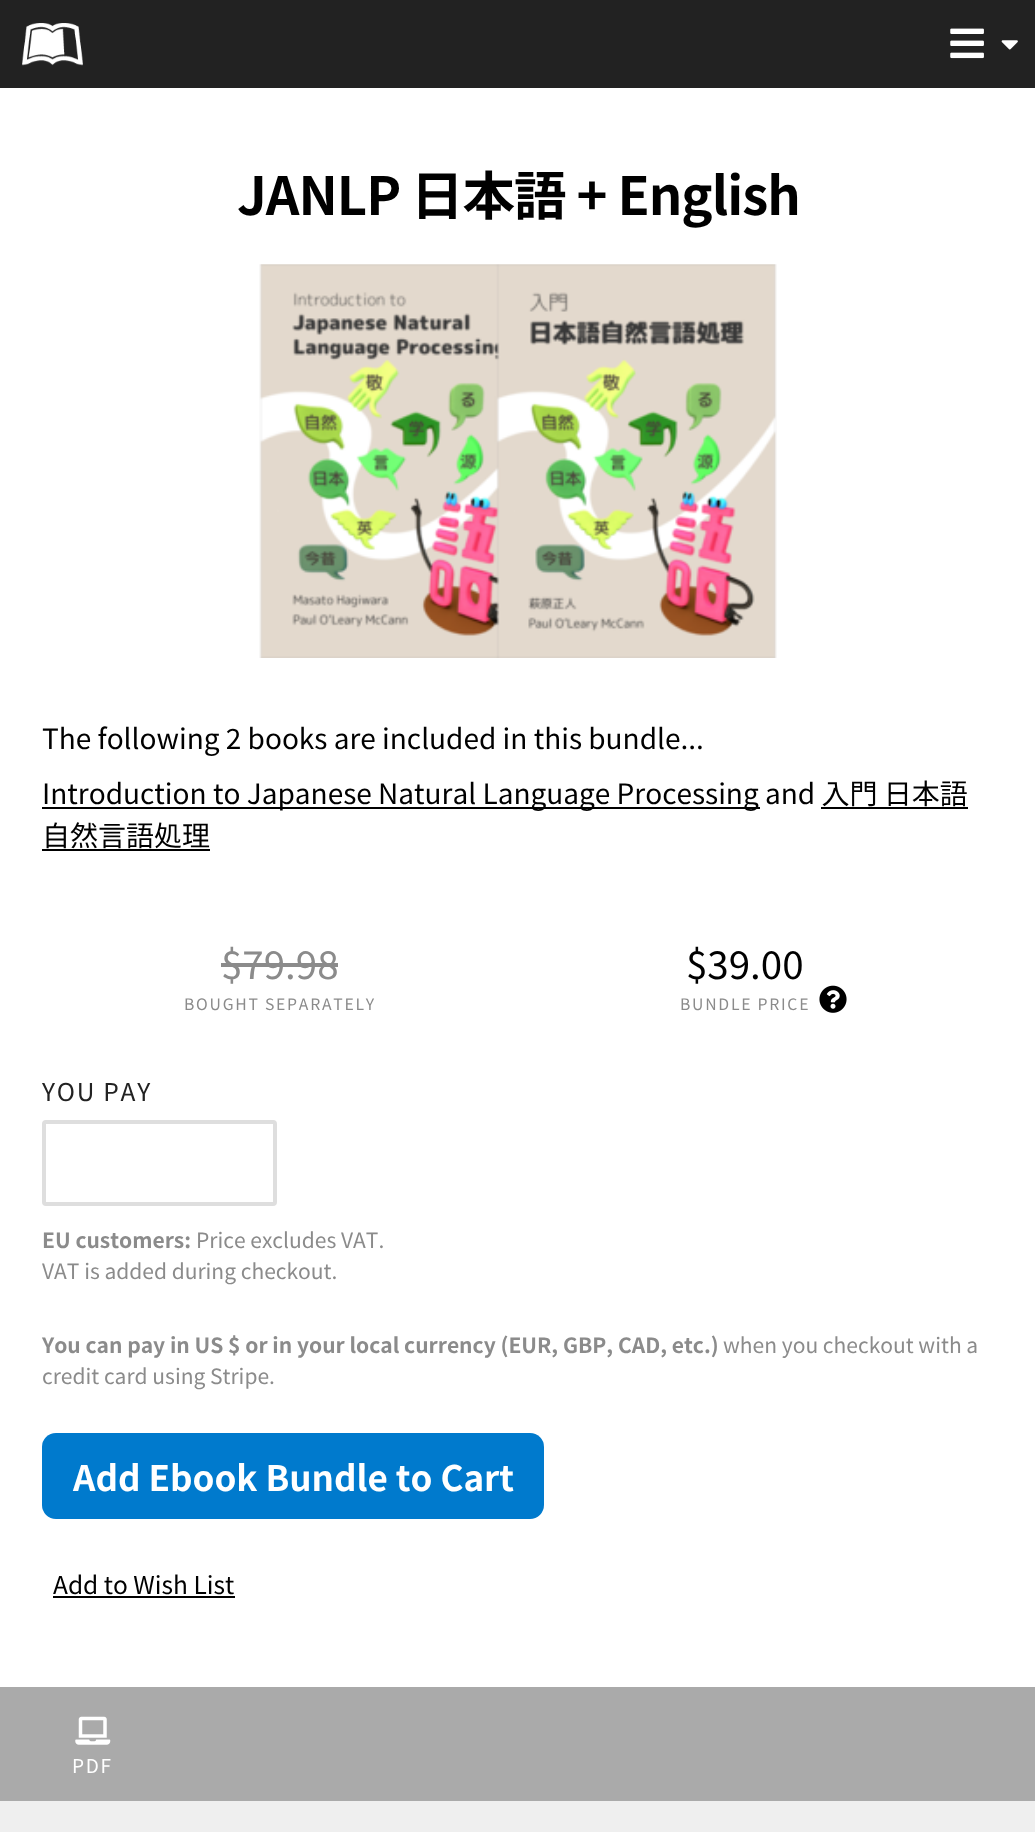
<!DOCTYPE html>
<meta charset="utf-8">
<style>body { margin: 0 } canvas { display: block }</style>
<canvas id="canvas" width="1035" height="1832"></canvas>
<script type="module">
  const canvas = document.getElementById("canvas");
  const ctx = canvas.getContext("2d");
  ctx.miterLimit = 4;
  ctx.fontKerning = "none";
  async function loadImage(src) {
    const img = new Image();
    img.src = src;
    await img.decode();
    return img;
  }

  ctx.fillStyle = "#222222";
  ctx.fillRect(0, 0, 1035, 1832);
  ctx.drawImage(await loadImage("img1.png"), 22, 23, 61, 43);
  ctx.drawImage(await loadImage("img2.png"), 950, 28, 34, 31);
  ctx.drawImage(await loadImage("img3.png"), 1001, 40, 17, 10);
  ctx.fillStyle = "#ffffff";
  ctx.fillRect(0, 88, 1035, 1599);
  ctx.letterSpacing = "-1px";
  ctx.font = "bold 52.5px Noto Sans JP";
  ctx.fillStyle = "#000000";
  ctx.fillText("JANLP 日本語 + English", 237, 215);
  ctx.drawImage(await loadImage("img4.png"), 259, 264, 518, 394);
  ctx.letterSpacing = "0px";
  ctx.font = "28px Noto Sans JP";
  ctx.fillText("The following 2 books are included in this bundle...", 42, 749);
  ctx.fillRect(42, 807, 718, 2);
  ctx.fillText("Introduction to Japanese Natural Language Processing and 入門 日本語", 42, 804);
  ctx.fillText("自然言語処理", 42, 846);
  ctx.fillRect(821, 807, 147, 2);
  ctx.fillRect(42, 849, 168, 2);
  ctx.font = "38.5px Noto Sans JP";
  ctx.fillStyle = "#8b8b8b";
  ctx.fillText("$79.98", 221, 979);
  ctx.fillRect(221, 963, 117, 4);
  ctx.letterSpacing = "1.75px";
  ctx.font = "15.75px Noto Sans JP";
  ctx.fillText("BOUGHT SEPARATELY", 184, 1010);
  ctx.letterSpacing = "0px";
  ctx.font = "38.5px Noto Sans JP";
  ctx.fillStyle = "#000000";
  ctx.fillText("$39.00", 686, 979);
  ctx.letterSpacing = "1.75px";
  ctx.font = "15.75px Noto Sans JP";
  ctx.fillStyle = "#8b8b8b";
  ctx.fillText("BUNDLE PRICE", 680, 1010);
  ctx.drawImage(await loadImage("img5.png"), 819, 985, 28, 28);
  ctx.font = "24.5px Noto Sans JP";
  ctx.fillStyle = "#222222";
  ctx.fillText("YOU PAY", 42, 1101);
  ctx.beginPath();
  ctx.roundRect(44, 1122, 231, 82, 2);
  ctx.strokeStyle = "#dedede";
  ctx.lineWidth = 4;
  ctx.stroke();
  ctx.letterSpacing = "0px";
  ctx.font = "bold 21px Noto Sans JP";
  ctx.fillStyle = "#8b8b8b";
  ctx.fillText("EU customers:", 42, 1248);
  ctx.font = "21px Noto Sans JP";
  ctx.fillText("Price excludes VAT.", 196, 1248);
  ctx.fillText("VAT is added during checkout.", 42, 1279);
  ctx.font = "bold 21px Noto Sans JP";
  ctx.fillText("You can pay in US $ or in your local currency (EUR, GBP,", 42, 1353);
  ctx.fillText("CAD, etc.)", 618, 1353);
  ctx.font = "21px Noto Sans JP";
  ctx.fillText("when you checkout with a", 723, 1353);
  ctx.fillText("credit card using Stripe.", 42, 1384);
  ctx.fillStyle = "#007acd";
  ctx.beginPath();
  ctx.roundRect(42, 1433, 502, 86, 14);
  ctx.fill();
  ctx.font = "bold 35px Noto Sans JP";
  ctx.fillStyle = "#ffffff";
  ctx.fillText("Add Ebook Bundle to Cart", 73, 1491);
  ctx.font = "24.5px Noto Sans JP";
  ctx.fillStyle = "#000000";
  ctx.fillText("Add to Wish List", 53, 1594);
  ctx.fillRect(53, 1596, 182, 2);
  ctx.fillStyle = "#aaaaaa";
  ctx.fillRect(0, 1687, 1035, 114);
  ctx.drawImage(await loadImage("img6.png"), 75, 1716, 36, 29);
  ctx.letterSpacing = "1.75px";
  ctx.font = "19px Noto Sans JP";
  ctx.fillStyle = "#ffffff";
  ctx.fillText("PDF", 72, 1773);
  ctx.fillStyle = "#efefef";
  ctx.fillRect(0, 1801, 1035, 31);
</script>
